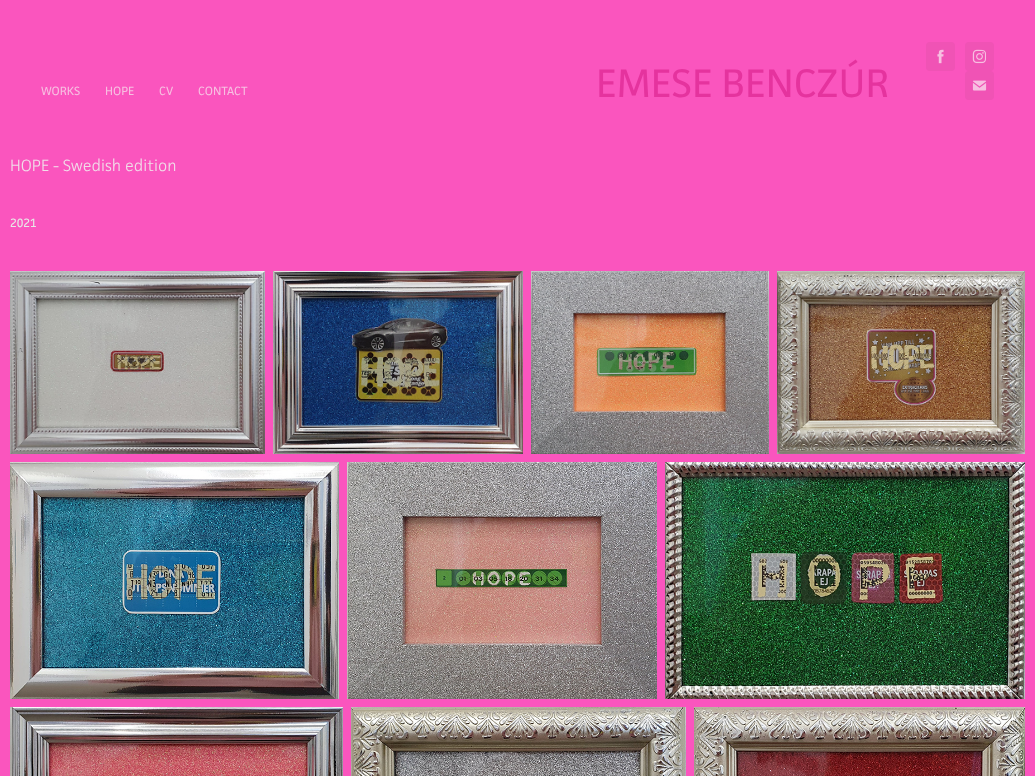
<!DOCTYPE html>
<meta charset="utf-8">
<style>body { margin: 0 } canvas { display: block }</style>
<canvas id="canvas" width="1035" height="776"></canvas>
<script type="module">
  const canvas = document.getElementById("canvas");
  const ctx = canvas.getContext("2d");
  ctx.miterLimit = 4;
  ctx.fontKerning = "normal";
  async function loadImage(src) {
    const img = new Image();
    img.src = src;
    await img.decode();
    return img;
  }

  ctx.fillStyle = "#fa55be";
  ctx.fillRect(0, 0, 1035, 776);
  ctx.font = "12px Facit";
  ctx.fillStyle = "#f7bfe1";
  ctx.fillText("WORKS", 41, 95);
  ctx.fillText("HOPE", 105, 95);
  ctx.fillText("CV", 159, 95);
  ctx.fillText("CONTACT", 198, 95);
  ctx.font = "40px Facit";
  ctx.fillStyle = "#e5339e";
  ctx.fillText("EMESE BENCZÚR", 596, 97);
  ctx.fillStyle = "#f053b5";
  ctx.beginPath();
  ctx.roundRect(926, 42, 29, 29, 4);
  ctx.fill();
  ctx.drawImage(await loadImage("img1.png"), 937, 49, 7, 15);
  ctx.beginPath();
  ctx.roundRect(965, 42, 29, 29, 4);
  ctx.fill();
  ctx.drawImage(await loadImage("img2.png"), 972, 49, 14, 15);
  ctx.beginPath();
  ctx.roundRect(965, 71, 29, 29, 4);
  ctx.fill();
  ctx.drawImage(await loadImage("img3.png"), 972, 80, 15, 11);
  ctx.font = "15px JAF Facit";
  ctx.fillStyle = "#f1dde9";
  ctx.fillText("HOPE - Swedish edition", 10, 171);
  ctx.font = "12px Facit";
  ctx.fillStyle = "#e8e8e8";
  ctx.fillText("2021", 10, 227);
  ctx.drawImage(await loadImage("img4.png"), 10, 271, 255, 183);
  ctx.drawImage(await loadImage("img5.png"), 273, 271, 250, 183);
  ctx.drawImage(await loadImage("img6.png"), 531, 271, 238, 183);
  ctx.drawImage(await loadImage("img7.png"), 777, 271, 248, 183);
  ctx.drawImage(await loadImage("img8.png"), 10, 462, 329, 237);
  ctx.drawImage(await loadImage("img9.png"), 347, 462, 310, 237);
  ctx.drawImage(await loadImage("img10.png"), 665, 462, 360, 237);
  ctx.drawImage(await loadImage("img11.png"), 10, 707, 333, 69);
  ctx.drawImage(await loadImage("img12.png"), 351, 707, 335, 69);
  ctx.drawImage(await loadImage("img13.png"), 694, 707, 331, 69);
</script>
